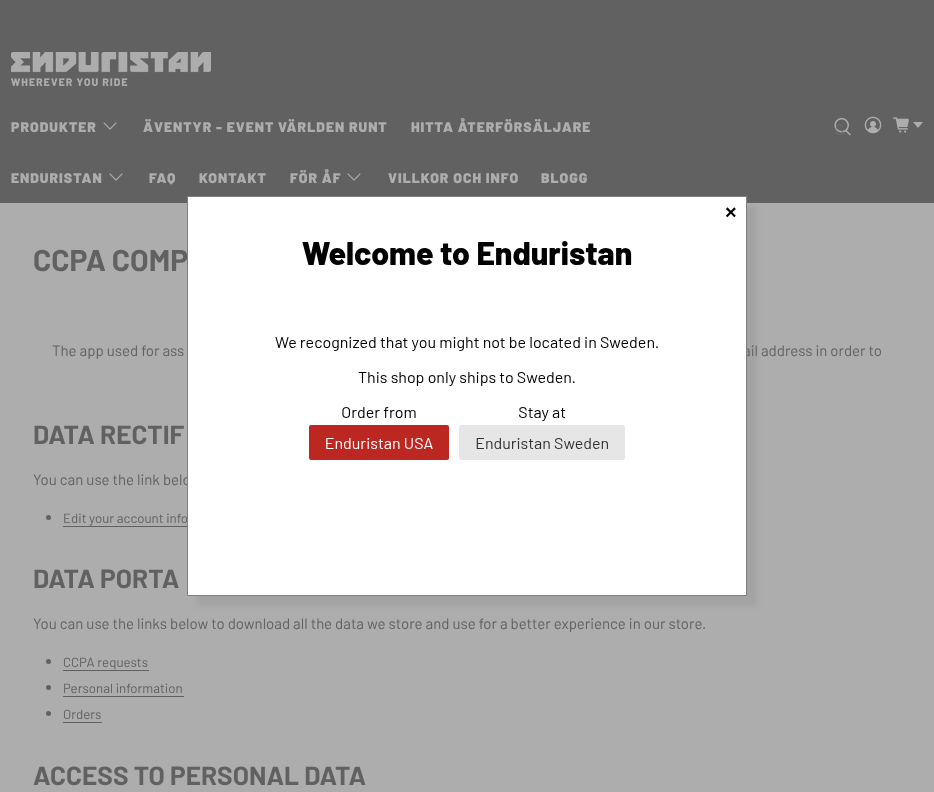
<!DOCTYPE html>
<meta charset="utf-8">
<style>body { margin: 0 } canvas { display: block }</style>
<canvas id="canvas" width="934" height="792"></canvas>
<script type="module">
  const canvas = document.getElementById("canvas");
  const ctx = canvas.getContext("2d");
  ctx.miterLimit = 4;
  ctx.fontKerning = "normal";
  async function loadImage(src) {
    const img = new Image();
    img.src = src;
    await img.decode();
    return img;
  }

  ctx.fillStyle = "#adadad";
  ctx.fillRect(0, 0, 934, 792);
  ctx.fillStyle = "#616161";
  ctx.fillRect(0, 0, 934, 203);
  ctx.letterSpacing = "1px";
  ctx.font = "900 14px Barlow";
  ctx.fillStyle = "#adadad";
  ctx.fillText("PRODUKTER", 11, 132);
  ctx.drawImage(await loadImage("img1.png"), 103, 122, 14, 8);
  ctx.fillText("ÄVENTYR - EVENT VÄRLDEN RUNT", 143, 132);
  ctx.fillText("HITTA ÅTERFÖRSÄLJARE", 411, 132);
  ctx.fillText("ENDURISTAN", 11, 183);
  ctx.drawImage(await loadImage("img1.png"), 109, 173, 14, 8);
  ctx.fillText("FAQ", 149, 183);
  ctx.fillText("KONTAKT", 199, 183);
  ctx.fillText("FÖR ÅF", 290, 183);
  ctx.drawImage(await loadImage("img1.png"), 347, 173, 14, 8);
  ctx.fillText("VILLKOR OCH INFO", 388, 183);
  ctx.fillText("BLOGG", 541, 183);
  ctx.drawImage(await loadImage("img2.png"), 11, 52, 200, 34);
  ctx.drawImage(await loadImage("img3.png"), 834, 118, 17, 18);
  ctx.letterSpacing = "0px";
  ctx.font = "15px Barlow";
  ctx.fillStyle = "#6e6e6e";
  ctx.fillText("S", 835, 135);
  ctx.drawImage(await loadImage("img4.png"), 864, 116, 18, 18);
  ctx.drawImage(await loadImage("img5.png"), 893, 117, 16, 16);
  ctx.fillStyle = "#adadad";
  ctx.beginPath();
  ctx.moveTo(913, 122);
  ctx.lineTo(923, 122);
  ctx.lineTo(918, 128);
  ctx.closePath();
  ctx.fill();
  ctx.fillStyle = "rgba(143, 143, 143, 0.35)";
  ctx.filter = "blur(2.5px)";
  ctx.beginPath();
  ctx.rect(197, 206, 560, 400);
  ctx.fill();
  ctx.filter = "none";
  ctx.font = "bold 30px Barlow";
  ctx.fillStyle = "#616161";
  ctx.fillText("CCPA COMP", 33, 271);
  ctx.font = "15px Barlow";
  ctx.fillText("ail address in order to", 743, 356);
  ctx.fillText("You can use the link belo", 33, 485);
  ctx.font = "13.25px Barlow";
  ctx.fillText("Edit your account info", 63, 523);
  ctx.fillStyle = "#ffffff";
  ctx.beginPath();
  ctx.rect(187.5, 196.5, 559, 399);
  ctx.fill();
  ctx.strokeStyle = "#808080";
  ctx.stroke();
  ctx.font = "bold 20px Liberation Sans";
  ctx.fillStyle = "#000000";
  ctx.fillText("×", 725, 219);
  ctx.drawImage(await loadImage("img6.png"), 275, 241, 383, 219);
  ctx.font = "15px Barlow";
  ctx.fillStyle = "#616161";
  ctx.fillText("The app used for ass", 52, 356);
  ctx.font = "bold 26.25px Barlow";
  ctx.fillText("DATA RECTIF", 33, 444);
  ctx.beginPath();
  ctx.arc(48.5, 517.5, 2.5, 0, Math.PI * 2);
  ctx.fill();
  ctx.fillRect(63, 526, 124, 1);
  ctx.fillText("DATA PORTA", 33, 588);
  ctx.font = "15px Barlow";
  ctx.fillText("You can use the links below to download all the data we store and use for a better experience in our store.", 33, 629);
  ctx.beginPath();
  ctx.arc(48.5, 661.5, 2.5, 0, Math.PI * 2);
  ctx.fill();
  ctx.fillRect(63, 670, 86, 1);
  ctx.font = "13.25px Barlow";
  ctx.fillText("CCPA requests", 63, 667);
  ctx.beginPath();
  ctx.arc(48.5, 687.5, 2.5, 0, Math.PI * 2);
  ctx.fill();
  ctx.fillRect(63, 696, 121, 1);
  ctx.fillText("Personal information", 63, 693);
  ctx.beginPath();
  ctx.arc(48.5, 713.5, 2.5, 0, Math.PI * 2);
  ctx.fill();
  ctx.fillRect(63, 722, 39, 1);
  ctx.fillText("Orders", 63, 719);
  ctx.font = "bold 26.25px Barlow";
  ctx.fillText("ACCESS TO PERSONAL DATA", 33, 785);
</script>
